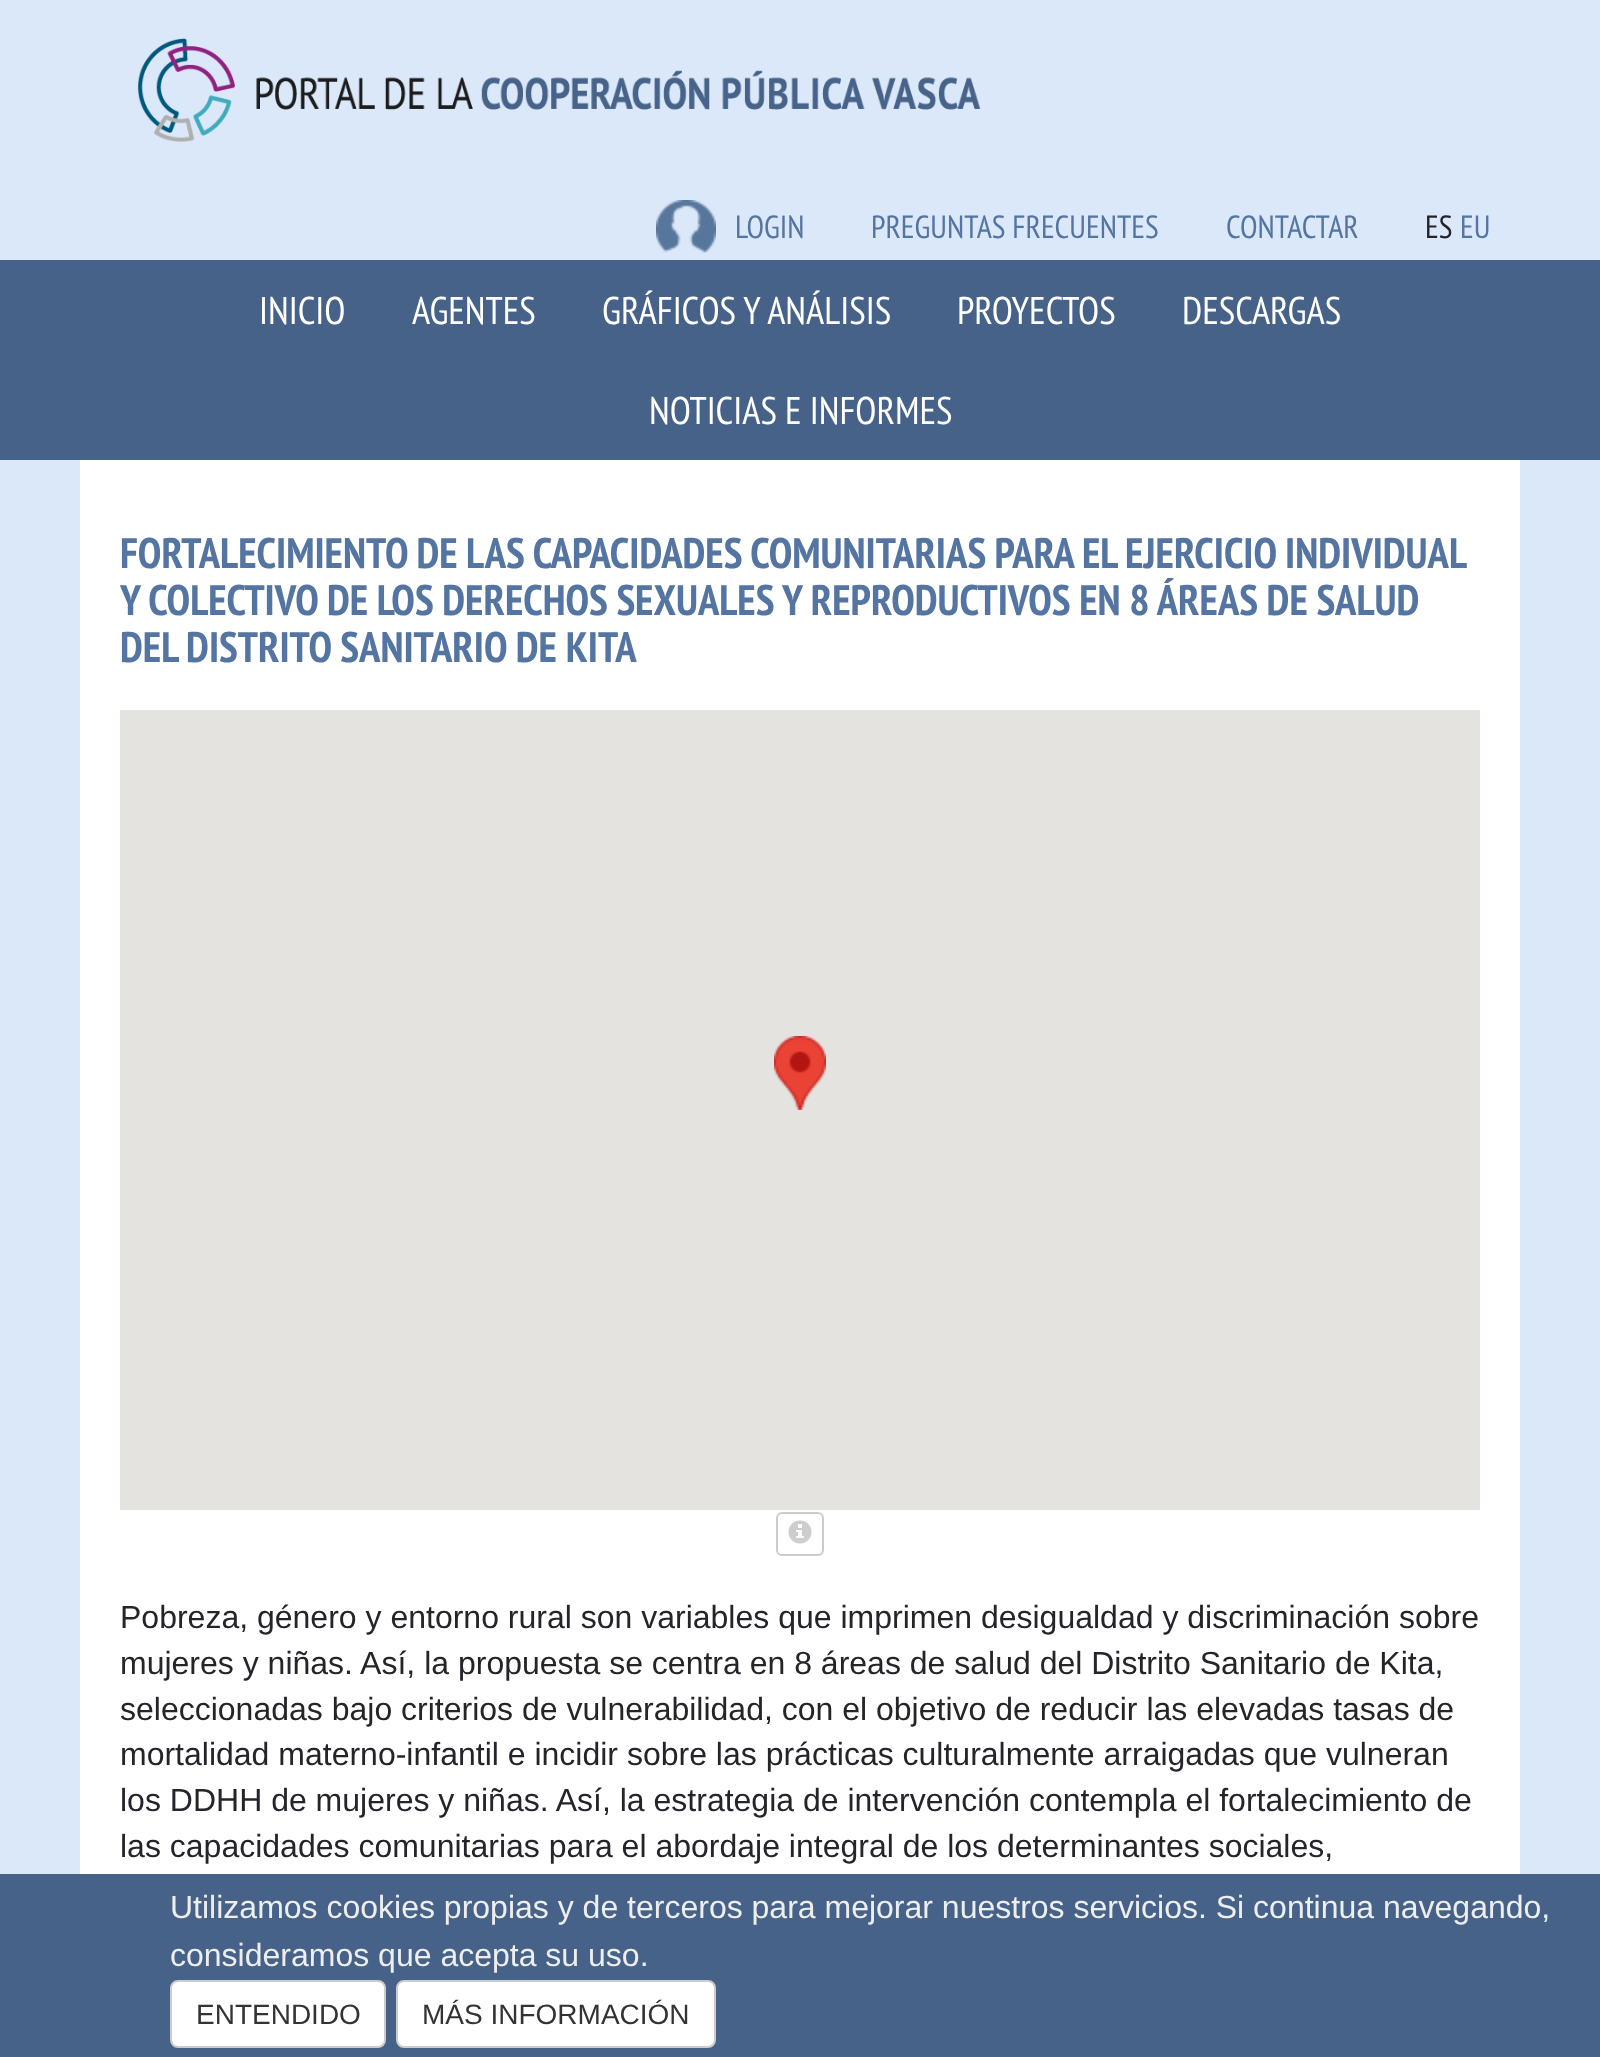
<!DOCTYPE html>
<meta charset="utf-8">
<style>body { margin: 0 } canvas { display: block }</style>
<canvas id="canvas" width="1600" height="2057"></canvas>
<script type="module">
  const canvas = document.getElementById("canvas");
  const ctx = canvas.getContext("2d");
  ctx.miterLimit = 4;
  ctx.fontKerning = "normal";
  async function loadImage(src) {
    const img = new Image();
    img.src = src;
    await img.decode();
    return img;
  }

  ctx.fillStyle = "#dbe8f9";
  ctx.fillRect(0, 0, 1600, 2057);
  ctx.drawImage(await loadImage("img1.png"), 137, 38, 844, 104);
  ctx.drawImage(await loadImage("img2.png"), 656, 200, 60, 53);
  ctx.font = "32px PT Sans Narrow";
  ctx.fillStyle = "#5475a2";
  ctx.fillText("LOGIN", 735, 238);
  ctx.fillText("PREGUNTAS FRECUENTES", 871, 238);
  ctx.fillText("CONTACTAR", 1226, 238);
  ctx.fillStyle = "#24242a";
  ctx.fillText("ES", 1425, 238);
  ctx.fillStyle = "#5475a2";
  ctx.fillText("EU", 1460, 238);
  ctx.fillStyle = "#466289";
  ctx.fillRect(0, 260, 1600, 200);
  ctx.font = "38.5px PT Sans Narrow";
  ctx.fillStyle = "#ffffff";
  ctx.fillText("INICIO", 259, 324);
  ctx.fillText("AGENTES", 412, 324);
  ctx.fillText("GRÁFICOS Y ANÁLISIS", 602, 324);
  ctx.fillText("PROYECTOS", 957, 324);
  ctx.fillText("DESCARGAS", 1182, 324);
  ctx.fillText("NOTICIAS E INFORMES", 649, 424);
  ctx.fillRect(80, 460, 1440, 1414);
  ctx.wordSpacing = "-0.25px";
  ctx.font = "bold 42.65px PT Sans Narrow";
  ctx.fillStyle = "#5475a2";
  ctx.fillText("FORTALECIMIENTO DE LAS CAPACIDADES COMUNITARIAS PARA EL EJERCICIO INDIVIDUAL", 120, 568);
  ctx.wordSpacing = "-0.1px";
  ctx.fillText("Y COLECTIVO DE LOS DERECHOS SEXUALES Y REPRODUCTIVOS EN 8 ÁREAS DE SALUD", 120, 615);
  ctx.wordSpacing = "0px";
  ctx.fillText("DEL DISTRITO SANITARIO DE KITA", 120, 662);
  ctx.fillStyle = "#e5e3df";
  ctx.fillRect(120, 710, 1360, 800);
  ctx.drawImage(await loadImage("img3.png"), 774, 1036, 52, 74);
  ctx.beginPath();
  ctx.roundRect(777, 1513, 46, 42, 5);
  ctx.strokeStyle = "#cccccc";
  ctx.lineWidth = 2;
  ctx.stroke();
  ctx.drawImage(await loadImage("img4.png"), 788, 1520, 24, 24);
  ctx.font = "32px Liberation Sans";
  ctx.fillStyle = "#24242a";
  ctx.fillText("Pobreza, género y entorno rural son variables que imprimen desigualdad y discriminación sobre", 120, 1628);
  ctx.fillText("mujeres y niñas. Así, la propuesta se centra en 8 áreas de salud del Distrito Sanitario de Kita,", 120, 1674);
  ctx.fillText("seleccionadas bajo criterios de vulnerabilidad, con el objetivo de reducir las elevadas tasas de", 120, 1720);
  ctx.fillText("mortalidad materno-infantil e incidir sobre las prácticas culturalmente arraigadas que vulneran", 120, 1765);
  ctx.fillText("los DDHH de mujeres y niñas. Así, la estrategia de intervención contempla el fortalecimiento de", 120, 1811);
  ctx.fillText("las capacidades comunitarias para el abordaje integral de los determinantes sociales,", 120, 1857);
  ctx.fillStyle = "#466289";
  ctx.fillRect(0, 1874, 1600, 183);
  ctx.fillStyle = "#eeeeee";
  ctx.fillText("Utilizamos cookies propias y de terceros para mejorar nuestros servicios. Si continua navegando,", 170, 1918);
  ctx.fillText("consideramos que acepta su uso.", 170, 1966);
  ctx.fillStyle = "#ffffff";
  ctx.beginPath();
  ctx.roundRect(171, 1981, 214, 66, 7);
  ctx.fill();
  ctx.stroke();
  ctx.font = "28px Liberation Sans";
  ctx.fillStyle = "#333333";
  ctx.fillText("ENTENDIDO", 196, 2024);
  ctx.fillStyle = "#ffffff";
  ctx.beginPath();
  ctx.roundRect(397, 1981, 318, 66, 7);
  ctx.fill();
  ctx.stroke();
  ctx.fillStyle = "#333333";
  ctx.fillText("MÁS INFORMACIÓN", 422, 2024);
</script>
